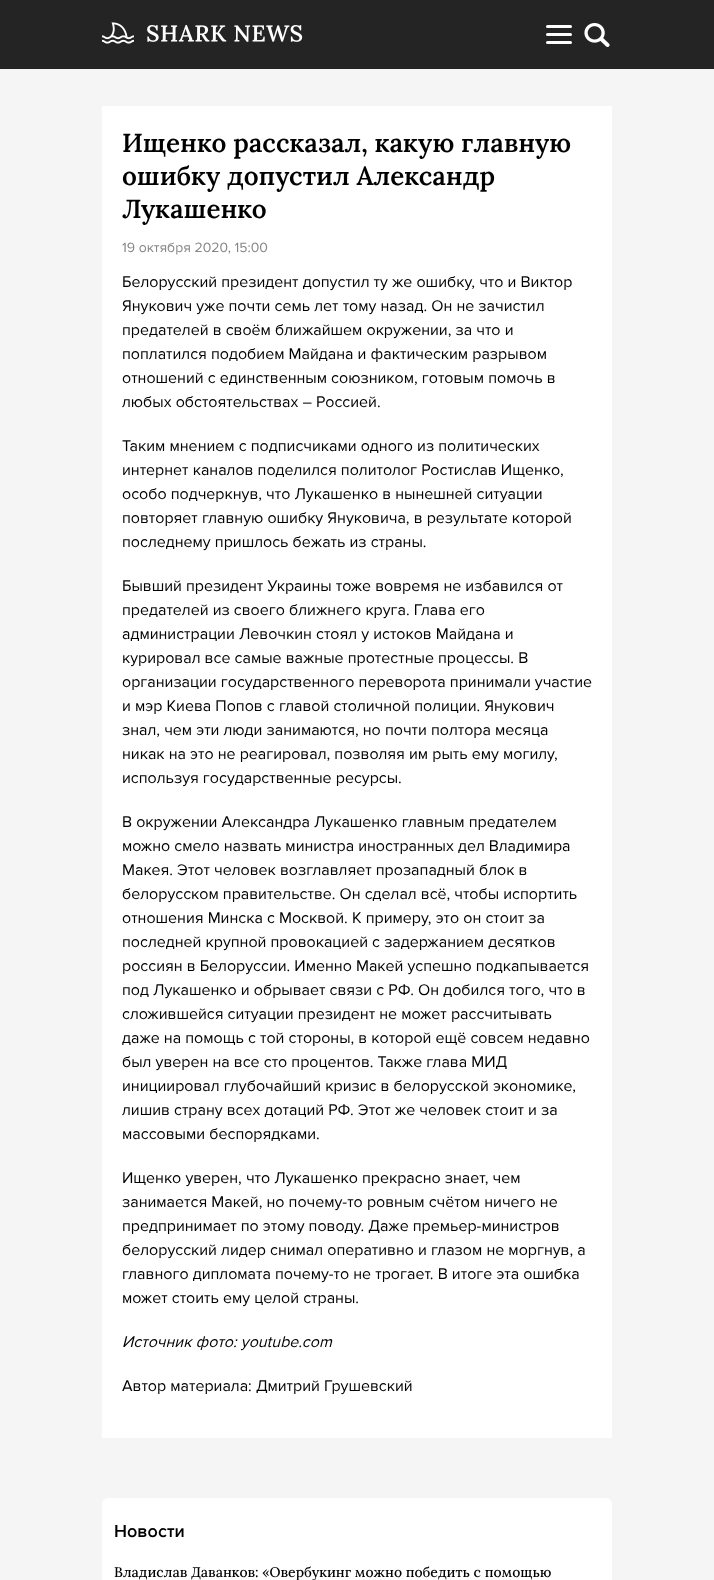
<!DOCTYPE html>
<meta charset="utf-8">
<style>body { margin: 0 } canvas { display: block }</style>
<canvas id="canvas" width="714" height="1580"></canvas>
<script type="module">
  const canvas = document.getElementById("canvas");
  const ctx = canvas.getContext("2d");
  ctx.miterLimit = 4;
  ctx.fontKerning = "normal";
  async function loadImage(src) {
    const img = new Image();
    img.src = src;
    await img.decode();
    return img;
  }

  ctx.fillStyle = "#f5f5f5";
  ctx.fillRect(0, 0, 714, 1580);
  ctx.fillStyle = "#242424";
  ctx.fillRect(0, 0, 714, 69);
  ctx.drawImage(await loadImage("img1.png"), 102, 22, 201, 22);
  ctx.fillStyle = "#ffffff";
  ctx.beginPath();
  ctx.roundRect(546, 33, 26, 3, 1.5);
  ctx.fill();
  ctx.beginPath();
  ctx.roundRect(546, 25, 26, 3, 1.5);
  ctx.fill();
  ctx.beginPath();
  ctx.roundRect(546, 41, 26, 3, 1.5);
  ctx.fill();
  ctx.drawImage(await loadImage("img2.png"), 584, 23, 26, 24);
  ctx.fillRect(102, 106, 510, 1332);
  ctx.font = "600 26px Lora";
  ctx.fillStyle = "#000000";
  ctx.fillText("Ищенко рассказал, какую главную", 122, 152);
  ctx.fillText("ошибку допустил Александр", 122, 185);
  ctx.fillText("Лукашенко", 122, 218);
  ctx.font = "14px Proxima Nova";
  ctx.fillStyle = "#868686";
  ctx.fillText("19 октября 2020, 15:00", 122, 252);
  ctx.font = "16px Proxima Nova";
  ctx.fillStyle = "#000000";
  ctx.fillText("Белорусский президент допустил ту же ошибку, что и Виктор", 122, 287);
  ctx.fillText("Янукович уже почти семь лет тому назад. Он не зачистил", 122, 311);
  ctx.fillText("предателей в своём ближайшем окружении, за что и", 122, 335);
  ctx.fillText("поплатился подобием Майдана и фактическим разрывом", 122, 359);
  ctx.fillText("отношений с единственным союзником, готовым помочь в", 122, 383);
  ctx.fillText("любых обстоятельствах – Россией.", 122, 407);
  ctx.fillText("Таким мнением с подписчиками одного из политических", 122, 451);
  ctx.fillText("интернет каналов поделился политолог Ростислав Ищенко,", 122, 475);
  ctx.fillText("особо подчеркнув, что Лукашенко в нынешней ситуации", 122, 499);
  ctx.fillText("повторяет главную ошибку Януковича, в результате которой", 122, 523);
  ctx.fillText("последнему пришлось бежать из страны.", 122, 547);
  ctx.fillText("Бывший президент Украины тоже вовремя не избавился от", 122, 591);
  ctx.fillText("предателей из своего ближнего круга. Глава его", 122, 615);
  ctx.fillText("администрации Левочкин стоял у истоков Майдана и", 122, 639);
  ctx.fillText("курировал все самые важные протестные процессы. В", 122, 663);
  ctx.fillText("организации государственного переворота принимали участие", 122, 687);
  ctx.fillText("и мэр Киева Попов с главой столичной полиции. Янукович", 122, 711);
  ctx.fillText("знал, чем эти люди занимаются, но почти полтора месяца", 122, 735);
  ctx.fillText("никак на это не реагировал, позволяя им рыть ему могилу,", 122, 759);
  ctx.fillText("используя государственные ресурсы.", 122, 783);
  ctx.fillText("В окружении Александра Лукашенко главным предателем", 122, 827);
  ctx.fillText("можно смело назвать министра иностранных дел Владимира", 122, 851);
  ctx.fillText("Макея. Этот человек возглавляет прозападный блок в", 122, 875);
  ctx.fillText("белорусском правительстве. Он сделал всё, чтобы испортить", 122, 899);
  ctx.fillText("отношения Минска с Москвой. К примеру, это он стоит за", 122, 923);
  ctx.fillText("последней крупной провокацией с задержанием десятков", 122, 947);
  ctx.fillText("россиян в Белоруссии. Именно Макей успешно подкапывается", 122, 971);
  ctx.fillText("под Лукашенко и обрывает связи с РФ. Он добился того, что в", 122, 995);
  ctx.fillText("сложившейся ситуации президент не может рассчитывать", 122, 1019);
  ctx.fillText("даже на помощь с той стороны, в которой ещё совсем недавно", 122, 1043);
  ctx.fillText("был уверен на все сто процентов. Также глава МИД", 122, 1067);
  ctx.fillText("инициировал глубочайший кризис в белорусской экономике,", 122, 1091);
  ctx.fillText("лишив страну всех дотаций РФ. Этот же человек стоит и за", 122, 1115);
  ctx.fillText("массовыми беспорядками.", 122, 1139);
  ctx.fillText("Ищенко уверен, что Лукашенко прекрасно знает, чем", 122, 1183);
  ctx.fillText("занимается Макей, но почему-то ровным счётом ничего не", 122, 1207);
  ctx.fillText("предпринимает по этому поводу. Даже премьер-министров", 122, 1231);
  ctx.fillText("белорусский лидер снимал оперативно и глазом не моргнув, а", 122, 1255);
  ctx.fillText("главного дипломата почему-то не трогает. В итоге эта ошибка", 122, 1279);
  ctx.fillText("может стоить ему целой страны.", 122, 1303);
  ctx.font = "italic 16px Proxima Nova";
  ctx.fillText("Источник фото: youtube.com", 122, 1347);
  ctx.font = "16px Proxima Nova";
  ctx.fillText("Автор материала: Дмитрий Грушевский", 122, 1391);
  ctx.fillStyle = "#ffffff";
  ctx.beginPath();
  ctx.roundRect(102, 1498, 510, 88, 6);
  ctx.fill();
  ctx.font = "600 18px Proxima Nova";
  ctx.fillStyle = "#000000";
  ctx.fillText("Новости", 114, 1537);
  ctx.font = "500 14px Lora";
  ctx.fillText("Владислав Даванков: «Овербукинг можно победить с помощью", 114, 1577);
</script>
